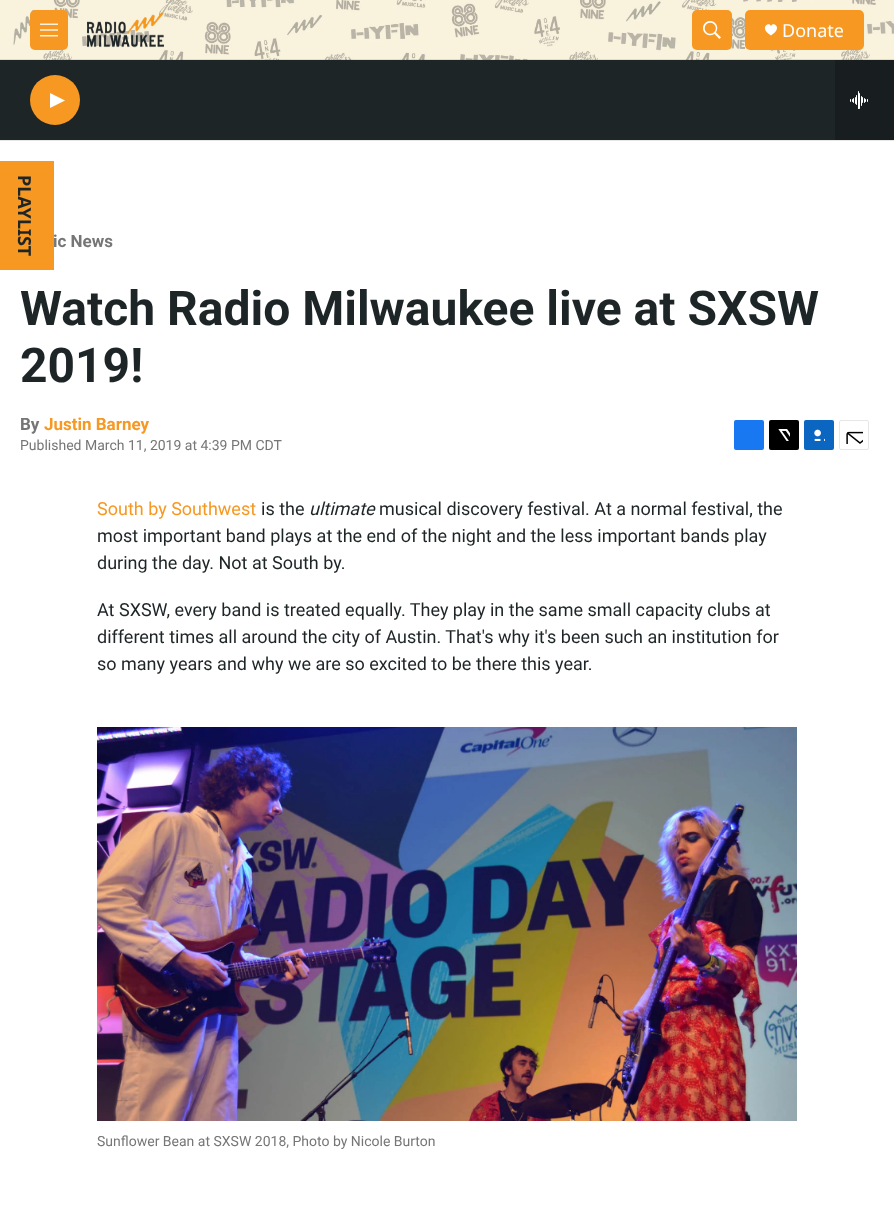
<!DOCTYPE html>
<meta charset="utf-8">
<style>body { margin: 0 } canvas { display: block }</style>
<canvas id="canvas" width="894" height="1214"></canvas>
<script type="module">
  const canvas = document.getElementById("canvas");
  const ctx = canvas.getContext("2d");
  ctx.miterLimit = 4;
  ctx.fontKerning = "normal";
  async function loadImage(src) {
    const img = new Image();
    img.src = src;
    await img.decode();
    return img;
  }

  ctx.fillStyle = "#ffffff";
  ctx.fillRect(0, 0, 894, 1214);
  ctx.fillStyle = "#1e2527";
  ctx.fillRect(0, 59, 894, 81);
  ctx.fillStyle = "#e6e6e6";
  ctx.fillRect(0, 140, 894, 1);
  ctx.drawImage(await loadImage("img1.png"), 0, 0, 894, 60);
  ctx.fillStyle = "#f79822";
  ctx.beginPath();
  ctx.roundRect(30, 10, 38, 40, 5);
  ctx.fill();
  ctx.drawImage(await loadImage("img2.png"), 40, 23, 18, 14);
  ctx.drawImage(await loadImage("img3.png"), 87, 12, 77, 36);
  ctx.beginPath();
  ctx.roundRect(692, 10, 40, 40, 5);
  ctx.fill();
  ctx.drawImage(await loadImage("img4.png"), 703, 21, 18, 18);
  ctx.beginPath();
  ctx.roundRect(745, 10, 119, 40, 5);
  ctx.fill();
  ctx.fillStyle = "#ffffff";
  ctx.beginPath();
  ctx.moveTo(771, 26);
  ctx.bezierCurveTo(769, 21, 758.5, 28, 771, 35.5);
  ctx.bezierCurveTo(783.5, 28, 773, 21, 771, 26);
  ctx.closePath();
  ctx.fill();
  ctx.font = "18px Noto Sans";
  ctx.fillText("Donate", 782, 37);
  ctx.fillStyle = "#f79822";
  ctx.beginPath();
  ctx.arc(55, 100, 25, 0, Math.PI * 2);
  ctx.fill();
  ctx.fillStyle = "#ffffff";
  ctx.beginPath();
  ctx.moveTo(50, 93);
  ctx.lineTo(65, 100.5);
  ctx.lineTo(50, 108);
  ctx.closePath();
  ctx.fill();
  ctx.fillStyle = "#181e1f";
  ctx.fillRect(835, 60, 59, 80);
  ctx.drawImage(await loadImage("img5.png"), 850, 91, 18, 18);
  ctx.fillStyle = "#f79822";
  ctx.fillRect(0, 161, 54, 109);
  ctx.font = "bold 18px Noto Sans";
  ctx.fillStyle = "#1e2527";
  ctx.save();
  ctx.translate(18, 175);
  ctx.rotate(90 * Math.PI / 180);
  ctx.fillText("PLAYLIST", 0, 0);
  ctx.restore();
  ctx.font = "bold 17px Roboto";
  ctx.fillStyle = "#767676";
  ctx.fillText("ic News", 53, 247);
  ctx.font = "bold 48px Roboto";
  ctx.fillStyle = "#1e2527";
  ctx.fillText("Watch Radio Milwaukee live at SXSW", 20, 325);
  ctx.fillText("2019!", 20, 382);
  ctx.font = "bold 17px Roboto";
  ctx.fillStyle = "#767676";
  ctx.fillText("By", 20, 430);
  ctx.fillStyle = "#f79822";
  ctx.fillText("Justin Barney", 44, 430);
  ctx.font = "14px Roboto";
  ctx.fillStyle = "#767676";
  ctx.fillText("Published March 11, 2019 at 4:39 PM CDT", 20, 450);
  ctx.fillStyle = "#1778f2";
  ctx.beginPath();
  ctx.roundRect(734, 420, 30, 30, 2);
  ctx.fill();
  ctx.fillStyle = "#000000";
  ctx.beginPath();
  ctx.roundRect(769, 420, 30, 30, 2);
  ctx.fill();
  ctx.drawImage(await loadImage("img6.png"), 778, 429, 12, 12);
  ctx.fillStyle = "#0a66c1";
  ctx.beginPath();
  ctx.roundRect(804, 420, 30, 30, 2);
  ctx.fill();
  ctx.drawImage(await loadImage("img7.png"), 814, 429, 11, 12);
  ctx.beginPath();
  ctx.roundRect(839.5, 420.5, 29, 29, 1.5);
  ctx.strokeStyle = "#e6e6e6";
  ctx.stroke();
  ctx.drawImage(await loadImage("img8.png"), 846, 431, 17, 13);
  ctx.font = "18px 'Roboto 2'";
  ctx.fillStyle = "#f79822";
  ctx.fillText("South by Southwest", 97, 515);
  ctx.fillStyle = "#1e2527";
  ctx.fillText("is the", 261, 515);
  ctx.font = "italic 18px Roboto";
  ctx.fillText("ultimate", 309, 515);
  ctx.font = "18px 'Roboto 2'";
  ctx.fillText("musical discovery festival. At a normal festival, the", 379, 515);
  ctx.fillText("most important band plays at the end of the night and the less important bands play", 97, 542);
  ctx.fillText("during the day. Not at South by.", 97, 569);
  ctx.fillText("At SXSW, every band is treated equally. They play in the same small capacity clubs at", 97, 616);
  ctx.fillText("different times all around the city of Austin. That's why it's been such an institution for", 97, 643);
  ctx.fillText("so many years and why we are so excited to be there this year.", 97, 670);
  ctx.drawImage(await loadImage("img9.png"), 97, 727, 700, 394);
  ctx.font = "14px Roboto";
  ctx.fillStyle = "#767676";
  ctx.fillText("Sunflower Bean at SXSW 2018, Photo by Nicole Burton", 97, 1146);
</script>
